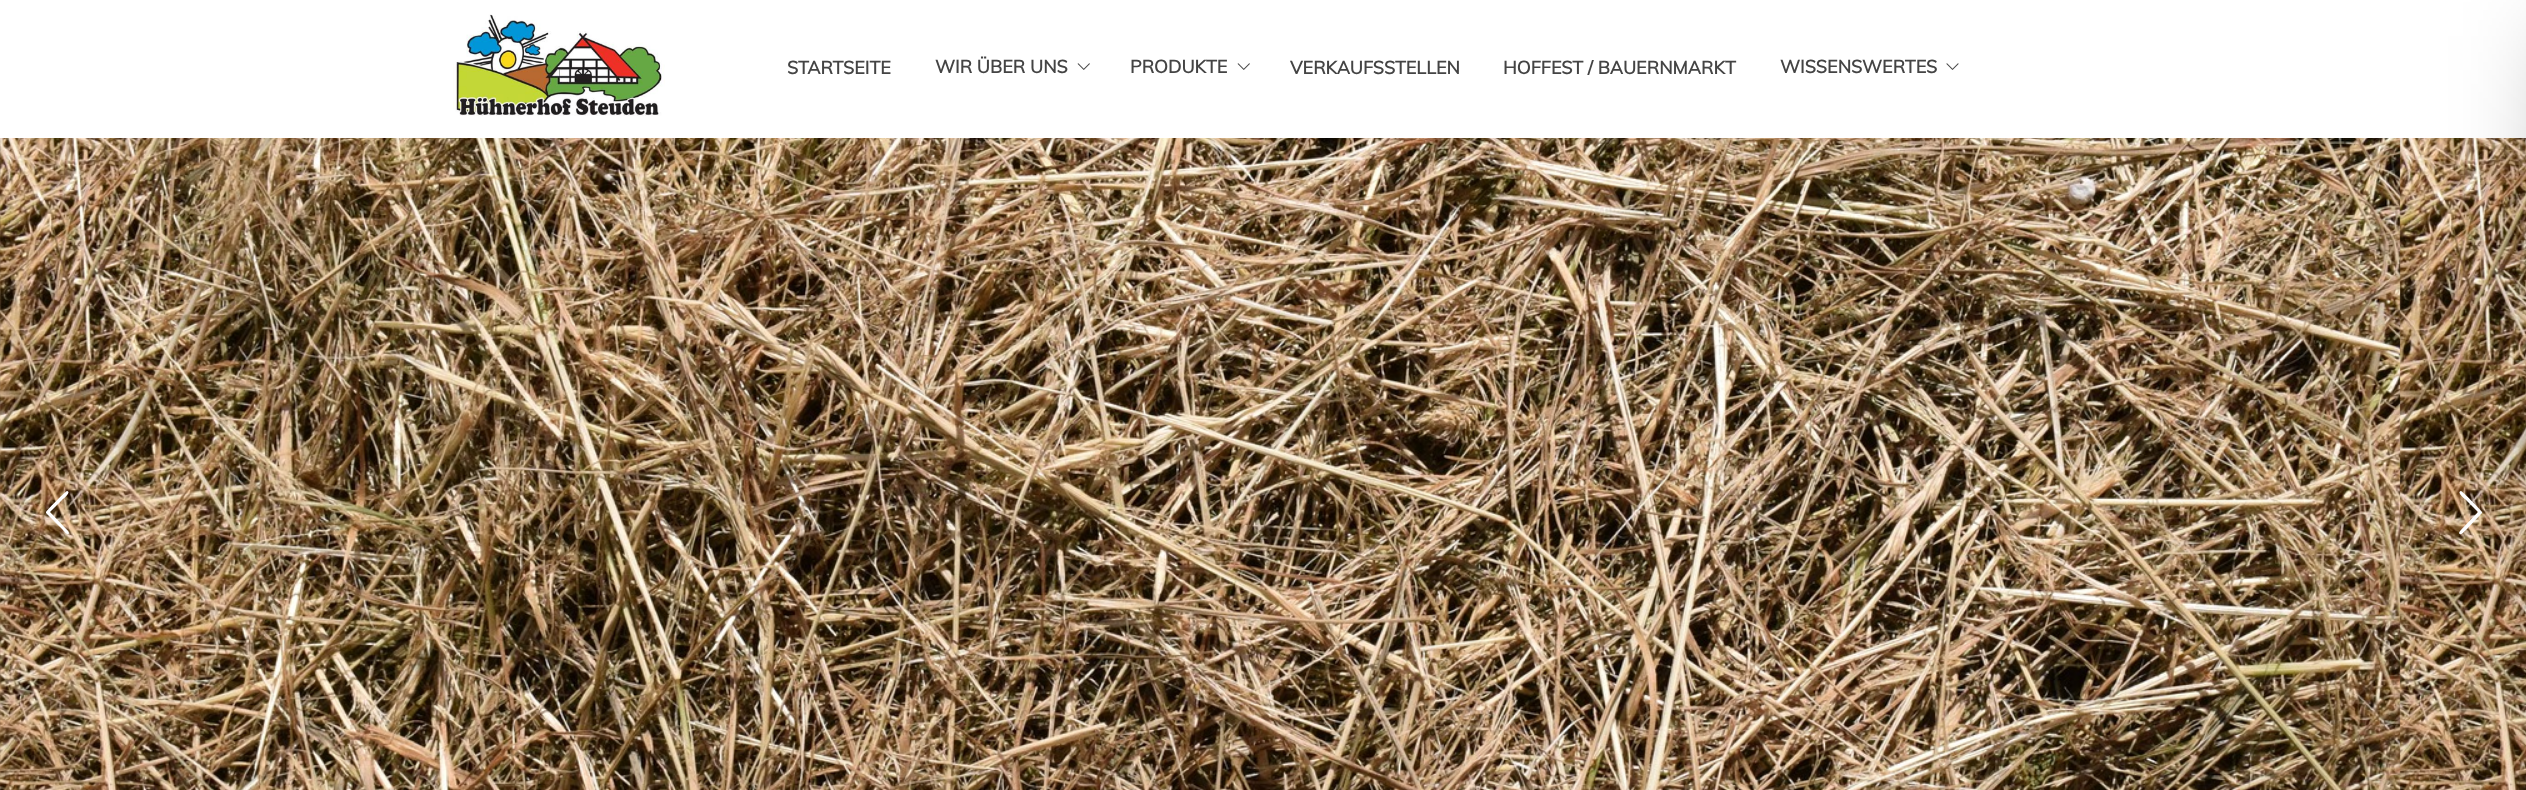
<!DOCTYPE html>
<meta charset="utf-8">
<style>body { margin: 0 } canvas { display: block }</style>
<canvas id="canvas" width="2526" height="790"></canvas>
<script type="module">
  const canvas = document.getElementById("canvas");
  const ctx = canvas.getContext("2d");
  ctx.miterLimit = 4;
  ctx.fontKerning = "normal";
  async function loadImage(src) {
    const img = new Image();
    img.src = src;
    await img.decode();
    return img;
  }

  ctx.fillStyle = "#ffffff";
  ctx.fillRect(0, 0, 2526, 790);
  ctx.drawImage(await loadImage("img1.png"), 0, 138, 2526, 652);
  ctx.drawImage(await loadImage("img2.png"), 453, 14, 212, 102);
  ctx.font = "bold 18px Muli";
  ctx.fillStyle = "#444444";
  ctx.fillText("STARTSEITE", 787, 74);
  ctx.fillText("WIR ÜBER UNS", 935, 73);
  ctx.drawImage(await loadImage("img3.png"), 1077, 63, 13, 7);
  ctx.fillText("PRODUKTE", 1130, 73);
  ctx.drawImage(await loadImage("img3.png"), 1237, 63, 13, 7);
  ctx.fillText("VERKAUFSSTELLEN", 1290, 74);
  ctx.fillText("HOFFEST / BAUERNMARKT", 1503, 74);
  ctx.fillText("WISSENSWERTES", 1780, 73);
  ctx.drawImage(await loadImage("img4.png"), 1946, 63, 13, 7);
  ctx.fillStyle = "#ffffff";
  ctx.beginPath();
  ctx.moveTo(68, 531);
  ctx.lineTo(69, 533);
  ctx.bezierCurveTo(68, 537, 63, 530, 63, 530);
  ctx.lineTo(46, 513);
  ctx.lineTo(46, 512);
  ctx.bezierCurveTo(48, 509, 66, 491, 67, 491);
  ctx.bezierCurveTo(72, 492, 63, 499, 62, 500);
  ctx.lineTo(50, 512);
  ctx.closePath();
  ctx.fill();
  ctx.beginPath();
  ctx.moveTo(2460, 531);
  ctx.lineTo(2478, 512);
  ctx.lineTo(2466, 500);
  ctx.bezierCurveTo(2465, 499, 2456, 492, 2461, 491);
  ctx.bezierCurveTo(2462, 491, 2480, 509, 2482, 512);
  ctx.lineTo(2482, 513);
  ctx.lineTo(2466, 530);
  ctx.bezierCurveTo(2465, 530, 2461, 537, 2459, 533);
  ctx.closePath();
  ctx.fill();
  ctx.fillStyle = "rgba(0, 0, 0, 0.29)";
  ctx.filter = "blur(50.5px)";
  ctx.beginPath();
  ctx.rect(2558, 36, 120, 723);
  ctx.fill();
  ctx.filter = "none";
</script>
